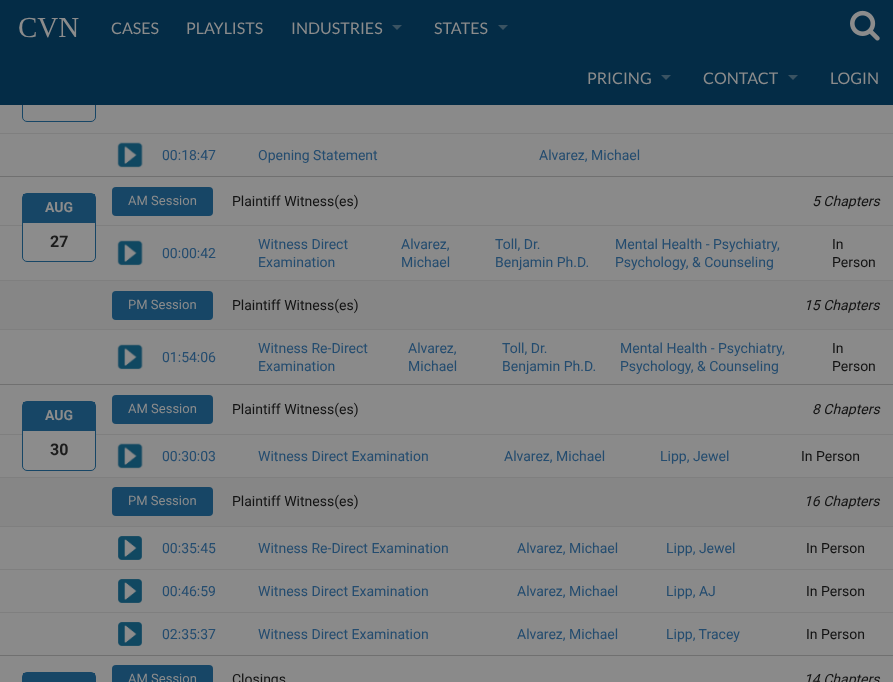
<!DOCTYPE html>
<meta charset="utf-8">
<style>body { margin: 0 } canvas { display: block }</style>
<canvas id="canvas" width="893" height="682"></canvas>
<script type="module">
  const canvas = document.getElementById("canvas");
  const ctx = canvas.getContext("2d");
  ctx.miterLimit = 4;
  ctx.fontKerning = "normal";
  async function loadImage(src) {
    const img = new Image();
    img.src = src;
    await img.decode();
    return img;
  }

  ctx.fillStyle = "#8a8a8a";
  ctx.fillRect(0, 0, 893, 682);
  ctx.beginPath();
  ctx.roundRect(22.5, 53.5, 73, 68, 4.5);
  ctx.strokeStyle = "#174666";
  ctx.stroke();
  ctx.fillStyle = "#042c46";
  ctx.fillRect(0, 0, 893, 105);
  ctx.font = "29px Liberation Serif";
  ctx.fillStyle = "#8c8c8c";
  ctx.fillText("CVN", 18, 37);
  ctx.font = "16px Lato";
  ctx.fillText("CASES", 111, 34);
  ctx.fillText("PLAYLISTS", 186, 34);
  ctx.fillText("INDUSTRIES", 291, 34);
  ctx.fillStyle = "#3a5362";
  ctx.beginPath();
  ctx.moveTo(392, 25);
  ctx.lineTo(402, 25);
  ctx.lineTo(397, 30);
  ctx.closePath();
  ctx.fill();
  ctx.fillStyle = "#8c8c8c";
  ctx.fillText("STATES", 434, 34);
  ctx.fillStyle = "#3a5362";
  ctx.beginPath();
  ctx.moveTo(498, 25);
  ctx.lineTo(508, 25);
  ctx.lineTo(503, 30);
  ctx.closePath();
  ctx.fill();
  ctx.drawImage(await loadImage("img1.png"), 850, 10, 30, 31);
  ctx.fillStyle = "#8c8c8c";
  ctx.fillText("PRICING", 587, 84);
  ctx.fillStyle = "#3a5362";
  ctx.beginPath();
  ctx.moveTo(661, 75);
  ctx.lineTo(671, 75);
  ctx.lineTo(666, 80);
  ctx.closePath();
  ctx.fill();
  ctx.fillStyle = "#8c8c8c";
  ctx.fillText("CONTACT", 703, 84);
  ctx.fillStyle = "#3a5362";
  ctx.beginPath();
  ctx.moveTo(788, 75);
  ctx.lineTo(798, 75);
  ctx.lineTo(793, 80);
  ctx.closePath();
  ctx.fill();
  ctx.fillStyle = "#8c8c8c";
  ctx.fillText("LOGIN", 830, 84);
  ctx.fillStyle = "#7f7f7f";
  ctx.fillRect(0, 133, 893, 1);
  ctx.drawImage(await loadImage("img2.png"), 117, 142, 26, 26);
  ctx.font = "14px Roboto";
  ctx.fillStyle = "#244c6f";
  ctx.fillText("00:18:47", 162, 160);
  ctx.fillText("Opening Statement", 258, 160);
  ctx.fillText("Alvarez, Michael", 539, 160);
  ctx.fillStyle = "#707070";
  ctx.fillRect(0, 176, 893, 1);
  ctx.fillStyle = "#7f7f7f";
  ctx.fillRect(0, 225, 893, 1);
  ctx.fillStyle = "#8c8c8c";
  ctx.beginPath();
  ctx.roundRect(22.5, 193.5, 73, 68, 4.5);
  ctx.fill();
  ctx.stroke();
  ctx.fillStyle = "#174666";
  ctx.fillRect(23, 194, 72, 29);
  ctx.font = "bold 14px Roboto";
  ctx.fillStyle = "#8c8c8c";
  ctx.fillText("AUG", 45, 212);
  ctx.font = "bold 16px Roboto";
  ctx.fillStyle = "#1c1c1c";
  ctx.fillText("27", 50, 247);
  ctx.fillStyle = "#174666";
  ctx.beginPath();
  ctx.roundRect(112, 187, 101, 29, 4);
  ctx.fill();
  ctx.font = "13px Roboto";
  ctx.fillStyle = "#8c8c8c";
  ctx.fillText("AM Session", 128, 205);
  ctx.font = "14px Roboto";
  ctx.fillStyle = "#131313";
  ctx.fillText("Plaintiff Witness(es)", 232, 206);
  ctx.font = "italic 14px Roboto";
  ctx.fillText("5 Chapters", 812, 206);
  ctx.drawImage(await loadImage("img3.png"), 117, 240, 26, 26);
  ctx.font = "14px Roboto";
  ctx.fillStyle = "#244c6f";
  ctx.fillText("00:00:42", 162, 258);
  ctx.fillText("Witness Direct", 258, 249);
  ctx.fillText("Examination", 258, 267);
  ctx.fillText("Alvarez,", 401, 249);
  ctx.fillText("Michael", 401, 267);
  ctx.fillText("Toll, Dr.", 495, 249);
  ctx.fillText("Benjamin Ph.D.", 495, 267);
  ctx.fillText("Mental Health - Psychiatry,", 615, 249);
  ctx.fillText("Psychology, & Counseling", 615, 267);
  ctx.fillStyle = "#131313";
  ctx.fillText("In", 832, 249);
  ctx.fillText("Person", 832, 267);
  ctx.fillStyle = "#868686";
  ctx.fillRect(0, 281, 893, 48);
  ctx.fillStyle = "#7f7f7f";
  ctx.fillRect(0, 280, 893, 1);
  ctx.fillStyle = "#174666";
  ctx.beginPath();
  ctx.roundRect(112, 291, 101, 29, 4);
  ctx.fill();
  ctx.font = "13px Roboto";
  ctx.fillStyle = "#8c8c8c";
  ctx.fillText("PM Session", 128, 309);
  ctx.font = "14px Roboto";
  ctx.fillStyle = "#131313";
  ctx.fillText("Plaintiff Witness(es)", 232, 310);
  ctx.font = "italic 14px Roboto";
  ctx.fillText("15 Chapters", 804, 310);
  ctx.fillStyle = "#7f7f7f";
  ctx.fillRect(0, 329, 893, 1);
  ctx.drawImage(await loadImage("img3.png"), 117, 344, 26, 26);
  ctx.font = "14px Roboto";
  ctx.fillStyle = "#244c6f";
  ctx.fillText("01:54:06", 162, 362);
  ctx.fillText("Witness Re-Direct", 258, 353);
  ctx.fillText("Examination", 258, 371);
  ctx.fillText("Alvarez,", 408, 353);
  ctx.fillText("Michael", 408, 371);
  ctx.fillText("Toll, Dr.", 502, 353);
  ctx.fillText("Benjamin Ph.D.", 502, 371);
  ctx.fillText("Mental Health - Psychiatry,", 620, 353);
  ctx.fillText("Psychology, & Counseling", 620, 371);
  ctx.fillStyle = "#131313";
  ctx.fillText("In", 832, 353);
  ctx.fillText("Person", 832, 371);
  ctx.fillStyle = "#707070";
  ctx.fillRect(0, 384, 893, 1);
  ctx.fillStyle = "#7f7f7f";
  ctx.fillRect(0, 434, 893, 1);
  ctx.fillStyle = "#8c8c8c";
  ctx.beginPath();
  ctx.roundRect(22.5, 401.5, 73, 69, 4.5);
  ctx.fill();
  ctx.stroke();
  ctx.fillStyle = "#174666";
  ctx.fillRect(23, 402, 72, 29);
  ctx.font = "bold 14px Roboto";
  ctx.fillStyle = "#8c8c8c";
  ctx.fillText("AUG", 45, 420);
  ctx.font = "bold 16px Roboto";
  ctx.fillStyle = "#1c1c1c";
  ctx.fillText("30", 50, 455);
  ctx.fillStyle = "#174666";
  ctx.beginPath();
  ctx.roundRect(112, 395, 101, 29, 4);
  ctx.fill();
  ctx.font = "13px Roboto";
  ctx.fillStyle = "#8c8c8c";
  ctx.fillText("AM Session", 128, 413);
  ctx.font = "14px Roboto";
  ctx.fillStyle = "#131313";
  ctx.fillText("Plaintiff Witness(es)", 232, 414);
  ctx.font = "italic 14px Roboto";
  ctx.fillText("8 Chapters", 812, 414);
  ctx.drawImage(await loadImage("img2.png"), 117, 443, 26, 26);
  ctx.font = "14px Roboto";
  ctx.fillStyle = "#244c6f";
  ctx.fillText("00:30:03", 162, 461);
  ctx.fillText("Witness Direct Examination", 258, 461);
  ctx.fillText("Alvarez, Michael", 504, 461);
  ctx.fillText("Lipp, Jewel", 660, 461);
  ctx.fillStyle = "#131313";
  ctx.fillText("In Person", 801, 461);
  ctx.fillStyle = "#868686";
  ctx.fillRect(0, 478, 893, 48);
  ctx.fillStyle = "#7f7f7f";
  ctx.fillRect(0, 477, 893, 1);
  ctx.fillStyle = "#174666";
  ctx.beginPath();
  ctx.roundRect(112, 487, 101, 29, 4);
  ctx.fill();
  ctx.font = "13px Roboto";
  ctx.fillStyle = "#8c8c8c";
  ctx.fillText("PM Session", 128, 505);
  ctx.font = "14px Roboto";
  ctx.fillStyle = "#131313";
  ctx.fillText("Plaintiff Witness(es)", 232, 506);
  ctx.font = "italic 14px Roboto";
  ctx.fillText("16 Chapters", 804, 506);
  ctx.fillStyle = "#7f7f7f";
  ctx.fillRect(0, 526, 893, 1);
  ctx.drawImage(await loadImage("img4.png"), 118, 536, 24, 24);
  ctx.font = "14px Roboto";
  ctx.fillStyle = "#244c6f";
  ctx.fillText("00:35:45", 162, 553);
  ctx.fillText("Witness Re-Direct Examination", 258, 553);
  ctx.fillText("Alvarez, Michael", 517, 553);
  ctx.fillText("Lipp, Jewel", 666, 553);
  ctx.fillStyle = "#131313";
  ctx.fillText("In Person", 806, 553);
  ctx.fillStyle = "#7f7f7f";
  ctx.fillRect(0, 569, 893, 1);
  ctx.drawImage(await loadImage("img4.png"), 118, 579, 24, 24);
  ctx.fillStyle = "#244c6f";
  ctx.fillText("00:46:59", 162, 596);
  ctx.fillText("Witness Direct Examination", 258, 596);
  ctx.fillText("Alvarez, Michael", 517, 596);
  ctx.fillText("Lipp, AJ", 666, 596);
  ctx.fillStyle = "#131313";
  ctx.fillText("In Person", 806, 596);
  ctx.fillStyle = "#7f7f7f";
  ctx.fillRect(0, 612, 893, 1);
  ctx.drawImage(await loadImage("img5.png"), 118, 622, 24, 24);
  ctx.fillStyle = "#244c6f";
  ctx.fillText("02:35:37", 162, 639);
  ctx.fillText("Witness Direct Examination", 258, 639);
  ctx.fillText("Alvarez, Michael", 517, 639);
  ctx.fillText("Lipp, Tracey", 666, 639);
  ctx.fillStyle = "#131313";
  ctx.fillText("In Person", 806, 639);
  ctx.fillStyle = "#707070";
  ctx.fillRect(0, 655, 893, 1);
  ctx.beginPath();
  ctx.roundRect(22.5, 672.5, 73, 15, 4.5);
  ctx.stroke();
  ctx.fillStyle = "#174666";
  ctx.fillRect(23, 673, 72, 9);
  ctx.beginPath();
  ctx.roundRect(112, 665, 101, 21, 4);
  ctx.fill();
  ctx.font = "13px Roboto";
  ctx.fillStyle = "#8c8c8c";
  ctx.fillText("AM Session", 128, 683);
  ctx.font = "14px Roboto";
  ctx.fillStyle = "#131313";
  ctx.fillText("Closings", 232, 684);
  ctx.font = "italic 14px Roboto";
  ctx.fillText("14 Chapters", 804, 684);
</script>
